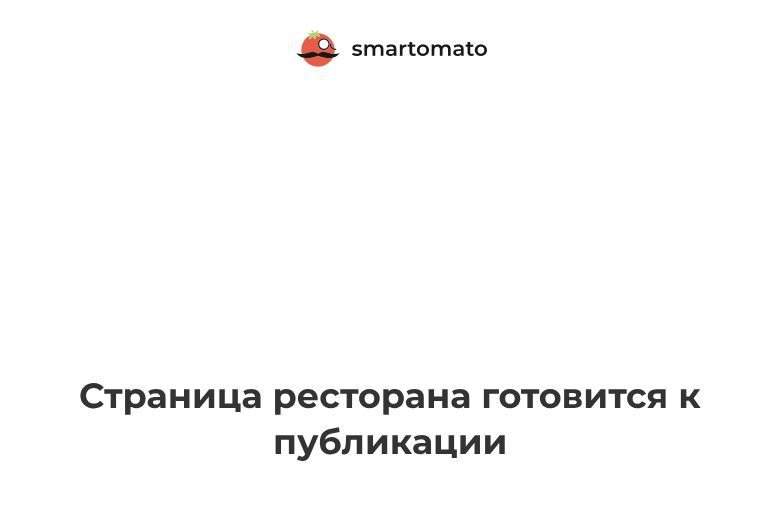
<!DOCTYPE html>
<meta charset="utf-8">
<style>body { margin: 0 } canvas { display: block }</style>
<canvas id="canvas" width="780" height="507"></canvas>
<script type="module">
  const canvas = document.getElementById("canvas");
  const ctx = canvas.getContext("2d");
  ctx.miterLimit = 4;
  ctx.fontKerning = "normal";
  async function loadImage(src) {
    const img = new Image();
    img.src = src;
    await img.decode();
    return img;
  }

  ctx.fillStyle = "#ffffff";
  ctx.fillRect(0, 0, 780, 507);
  ctx.drawImage(await loadImage("img1.png"), 296, 30, 191, 37);
  ctx.font = "bold 35px Montserrat";
  ctx.fillStyle = "#333333";
  ctx.fillText("Страница ресторана готовится к", 79, 408);
  ctx.fillText("публикации", 273, 454);
</script>
